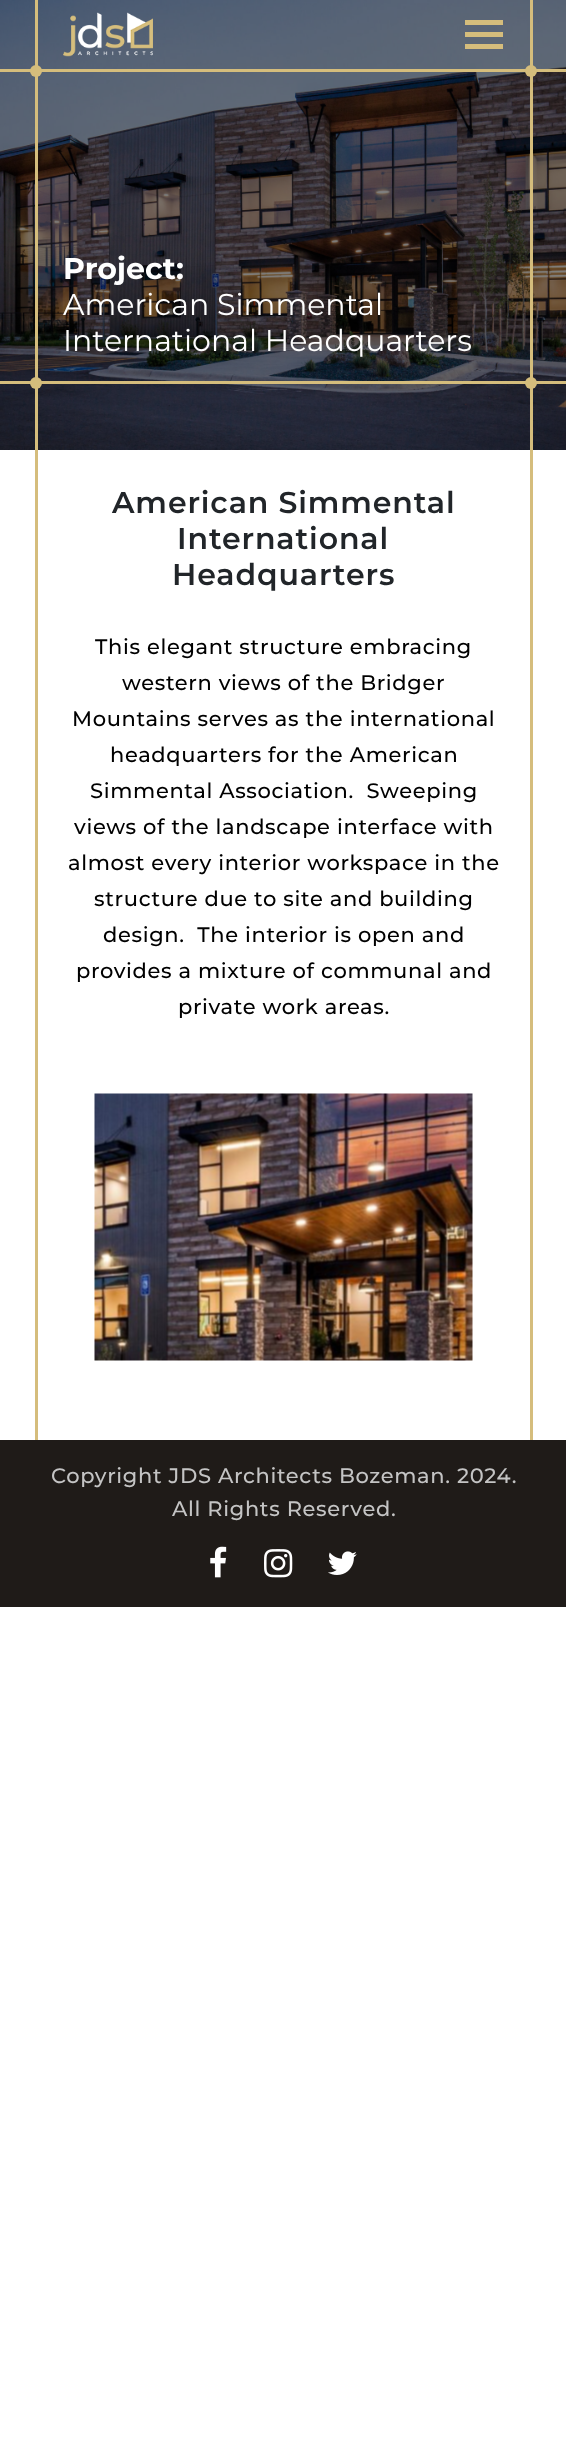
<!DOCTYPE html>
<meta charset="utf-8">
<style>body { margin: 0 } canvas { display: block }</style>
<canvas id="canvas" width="566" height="2452"></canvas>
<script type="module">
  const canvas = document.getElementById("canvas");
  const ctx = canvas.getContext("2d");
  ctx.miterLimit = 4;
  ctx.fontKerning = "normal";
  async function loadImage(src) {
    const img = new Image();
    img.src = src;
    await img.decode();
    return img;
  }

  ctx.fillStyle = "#ffffff";
  ctx.fillRect(0, 0, 566, 2452);
  ctx.fillStyle = "#000000";
  ctx.fillRect(0, 0, 566, 450);
  ctx.drawImage(await loadImage("img2.png"), 0, 0, 566, 450);
  ctx.fillStyle = "#d5bd7c";
  ctx.fillRect(0, 381, 566, 3);
  ctx.fillRect(530, 0, 3, 1440);
  ctx.fillRect(35, 0, 3, 1440);
  ctx.fillRect(0, 69, 566, 3);
  ctx.drawImage(await loadImage("img1.png"), 63, 12, 90, 45);
  ctx.fillRect(465, 20, 38, 5);
  ctx.fillRect(465, 32, 38, 5);
  ctx.fillRect(465, 44, 38, 5);
  ctx.beginPath();
  ctx.arc(36, 71, 6, 0, Math.PI * 2);
  ctx.fill();
  ctx.beginPath();
  ctx.arc(531, 71, 6, 0, Math.PI * 2);
  ctx.fill();
  ctx.font = "bold 30px Montserrat";
  ctx.fillStyle = "#ffffff";
  ctx.fillText("Project:", 63, 279);
  ctx.font = "30px Montserrat";
  ctx.fillText("American Simmental", 63, 315);
  ctx.fillText("International Headquarters", 63, 351);
  ctx.fillStyle = "#d5bd7c";
  ctx.beginPath();
  ctx.arc(36, 383, 6, 0, Math.PI * 2);
  ctx.fill();
  ctx.beginPath();
  ctx.arc(531, 383, 6, 0, Math.PI * 2);
  ctx.fill();
  ctx.letterSpacing = "0.9px";
  ctx.font = "600 30px Montserrat";
  ctx.fillStyle = "#212529";
  ctx.fillText("American Simmental", 112, 513);
  ctx.fillText("International", 177, 549);
  ctx.fillText("Headquarters", 172, 585);
  ctx.letterSpacing = "0.65px";
  ctx.font = "500 21px Montserrat";
  ctx.fillStyle = "#000000";
  ctx.fillText("This elegant structure embracing", 95, 654);
  ctx.fillText("western views of the Bridger", 122, 690);
  ctx.fillText("Mountains serves as the international", 72, 726);
  ctx.fillText("headquarters for the American", 110, 762);
  ctx.fillText("Simmental Association.  Sweeping", 90, 798);
  ctx.fillText("views of the landscape interface with", 74, 834);
  ctx.fillText("almost every interior workspace in the", 68, 870);
  ctx.fillText("structure due to site and building", 94, 906);
  ctx.fillText("design.  The interior is open and", 103, 942);
  ctx.fillText("provides a mixture of communal and", 76, 978);
  ctx.fillText("private work areas.", 178, 1014);
  ctx.drawImage(await loadImage("img3.png"), 94, 1093, 379, 268);
  ctx.fillStyle = "#1f1b18";
  ctx.fillRect(0, 1440, 566, 167);
  ctx.fillStyle = "#c4c4c4";
  ctx.fillText("Copyright JDS Architects Bozeman. 2024.", 51, 1483);
  ctx.fillText("All Rights Reserved.", 172, 1516);
  ctx.drawImage(await loadImage("img4.png"), 210, 1546, 17, 32);
  ctx.drawImage(await loadImage("img5.png"), 264, 1549, 29, 29);
  ctx.drawImage(await loadImage("img6.png"), 328, 1551, 29, 24);
</script>
